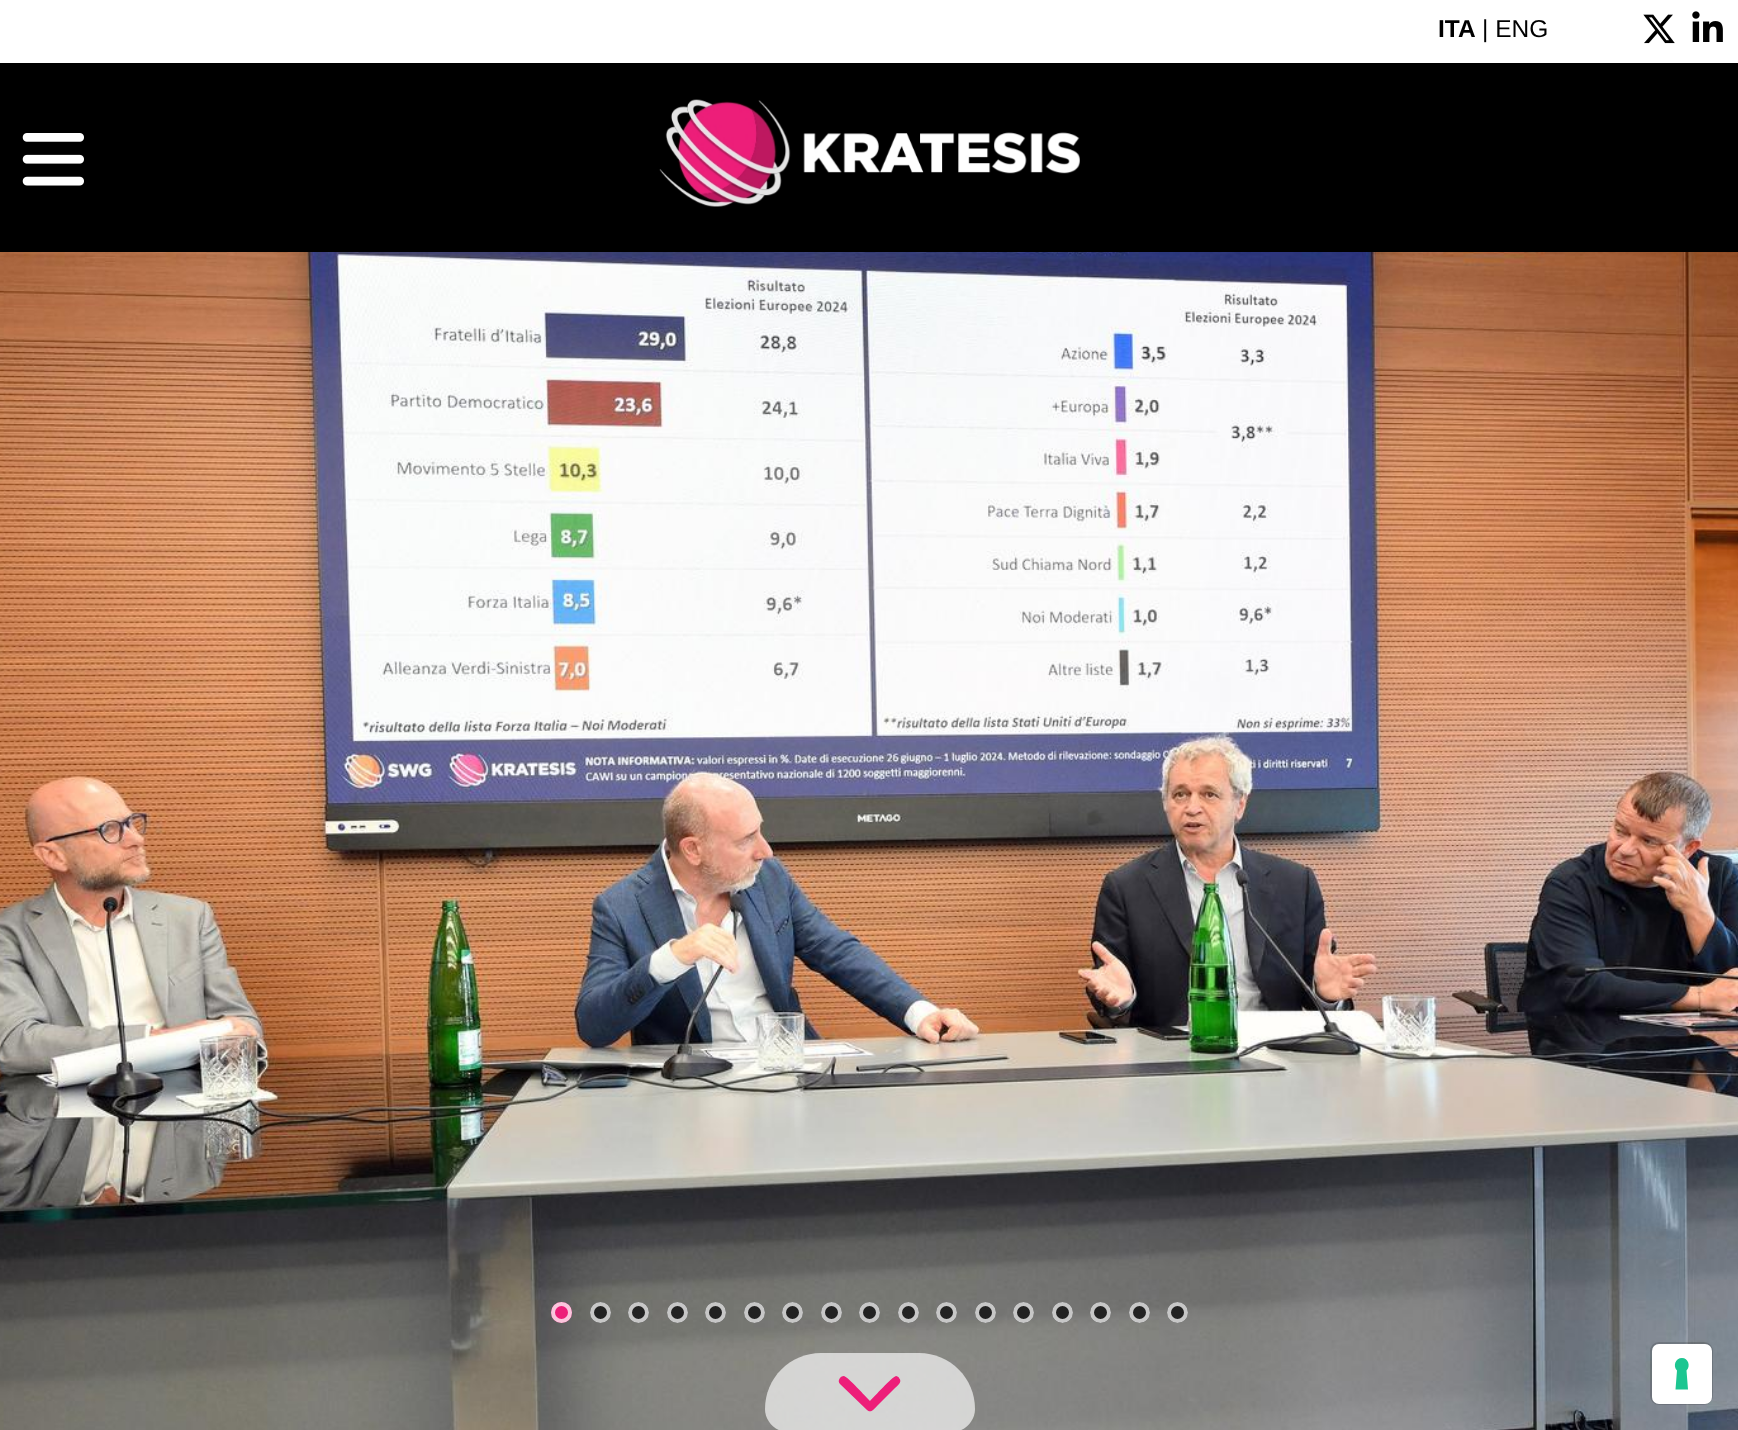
<!DOCTYPE html>
<meta charset="utf-8">
<style>body { margin: 0 } canvas { display: block }</style>
<canvas id="canvas" width="1738" height="1430"></canvas>
<script type="module">
  const canvas = document.getElementById("canvas");
  const ctx = canvas.getContext("2d");
  ctx.miterLimit = 4;
  ctx.fontKerning = "normal";
  async function loadImage(src) {
    const img = new Image();
    img.src = src;
    await img.decode();
    return img;
  }

  ctx.fillStyle = "#ffffff";
  ctx.fillRect(0, 0, 1738, 1430);
  ctx.fillStyle = "#000000";
  ctx.fillRect(0, 63, 1738, 189);
  ctx.font = "bold 24.5px Liberation Sans";
  ctx.fillText("ITA", 1438, 37);
  ctx.font = "24.5px Liberation Sans";
  ctx.fillText("| ENG", 1482, 37);
  ctx.drawImage(await loadImage("img1.png"), 1643, 14, 32, 30);
  ctx.drawImage(await loadImage("img2.png"), 1692, 11, 31, 31);
  ctx.drawImage(await loadImage("img3.png"), 22, 133, 62, 53);
  ctx.drawImage(await loadImage("img4.png"), 659, 99, 421, 108);
  ctx.drawImage(await loadImage("img5.png"), 0, 252, 1738, 1178);
  ctx.fillStyle = "#ed1e79";
  ctx.beginPath();
  ctx.arc(561.5, 1312.5, 10.5, 0, Math.PI * 2);
  ctx.fill();
  ctx.beginPath();
  ctx.arc(561.5, 1312.5, 8.5, 0, Math.PI * 2);
  ctx.strokeStyle = "rgba(255, 255, 255, 0.75)";
  ctx.lineWidth = 4;
  ctx.stroke();
  ctx.fillStyle = "#222222";
  ctx.beginPath();
  ctx.arc(600.5, 1312.5, 10.5, 0, Math.PI * 2);
  ctx.fill();
  ctx.beginPath();
  ctx.arc(600.5, 1312.5, 8.5, 0, Math.PI * 2);
  ctx.stroke();
  ctx.beginPath();
  ctx.arc(638.5, 1312.5, 10.5, 0, Math.PI * 2);
  ctx.fill();
  ctx.beginPath();
  ctx.arc(638.5, 1312.5, 8.5, 0, Math.PI * 2);
  ctx.stroke();
  ctx.beginPath();
  ctx.arc(677.5, 1312.5, 10.5, 0, Math.PI * 2);
  ctx.fill();
  ctx.beginPath();
  ctx.arc(677.5, 1312.5, 8.5, 0, Math.PI * 2);
  ctx.stroke();
  ctx.beginPath();
  ctx.arc(715.5, 1312.5, 10.5, 0, Math.PI * 2);
  ctx.fill();
  ctx.beginPath();
  ctx.arc(715.5, 1312.5, 8.5, 0, Math.PI * 2);
  ctx.stroke();
  ctx.beginPath();
  ctx.arc(754.5, 1312.5, 10.5, 0, Math.PI * 2);
  ctx.fill();
  ctx.beginPath();
  ctx.arc(754.5, 1312.5, 8.5, 0, Math.PI * 2);
  ctx.stroke();
  ctx.beginPath();
  ctx.arc(792.5, 1312.5, 10.5, 0, Math.PI * 2);
  ctx.fill();
  ctx.beginPath();
  ctx.arc(792.5, 1312.5, 8.5, 0, Math.PI * 2);
  ctx.stroke();
  ctx.beginPath();
  ctx.arc(831.5, 1312.5, 10.5, 0, Math.PI * 2);
  ctx.fill();
  ctx.beginPath();
  ctx.arc(831.5, 1312.5, 8.5, 0, Math.PI * 2);
  ctx.stroke();
  ctx.beginPath();
  ctx.arc(869.5, 1312.5, 10.5, 0, Math.PI * 2);
  ctx.fill();
  ctx.beginPath();
  ctx.arc(869.5, 1312.5, 8.5, 0, Math.PI * 2);
  ctx.stroke();
  ctx.beginPath();
  ctx.arc(908.5, 1312.5, 10.5, 0, Math.PI * 2);
  ctx.fill();
  ctx.beginPath();
  ctx.arc(908.5, 1312.5, 8.5, 0, Math.PI * 2);
  ctx.stroke();
  ctx.beginPath();
  ctx.arc(946.5, 1312.5, 10.5, 0, Math.PI * 2);
  ctx.fill();
  ctx.beginPath();
  ctx.arc(946.5, 1312.5, 8.5, 0, Math.PI * 2);
  ctx.stroke();
  ctx.beginPath();
  ctx.arc(985.5, 1312.5, 10.5, 0, Math.PI * 2);
  ctx.fill();
  ctx.beginPath();
  ctx.arc(985.5, 1312.5, 8.5, 0, Math.PI * 2);
  ctx.stroke();
  ctx.beginPath();
  ctx.arc(1023.5, 1312.5, 10.5, 0, Math.PI * 2);
  ctx.fill();
  ctx.beginPath();
  ctx.arc(1023.5, 1312.5, 8.5, 0, Math.PI * 2);
  ctx.stroke();
  ctx.beginPath();
  ctx.arc(1062.5, 1312.5, 10.5, 0, Math.PI * 2);
  ctx.fill();
  ctx.beginPath();
  ctx.arc(1062.5, 1312.5, 8.5, 0, Math.PI * 2);
  ctx.stroke();
  ctx.beginPath();
  ctx.arc(1100.5, 1312.5, 10.5, 0, Math.PI * 2);
  ctx.fill();
  ctx.beginPath();
  ctx.arc(1100.5, 1312.5, 8.5, 0, Math.PI * 2);
  ctx.stroke();
  ctx.beginPath();
  ctx.arc(1139.5, 1312.5, 10.5, 0, Math.PI * 2);
  ctx.fill();
  ctx.beginPath();
  ctx.arc(1139.5, 1312.5, 8.5, 0, Math.PI * 2);
  ctx.stroke();
  ctx.beginPath();
  ctx.arc(1177.5, 1312.5, 10.5, 0, Math.PI * 2);
  ctx.fill();
  ctx.beginPath();
  ctx.arc(1177.5, 1312.5, 8.5, 0, Math.PI * 2);
  ctx.stroke();
  ctx.fillStyle = "rgba(255, 255, 255, 0.65)";
  ctx.beginPath();
  ctx.moveTo(821, 1353);
  ctx.lineTo(919, 1353);
  ctx.bezierCurveTo(950, 1353, 975, 1378, 975, 1409);
  ctx.bezierCurveTo(975, 1421.5, 964.5, 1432, 952, 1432);
  ctx.lineTo(788, 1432);
  ctx.bezierCurveTo(775.5, 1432, 765, 1421.5, 765, 1409);
  ctx.bezierCurveTo(765, 1378, 790, 1353, 821, 1353);
  ctx.closePath();
  ctx.fill();
  ctx.fillStyle = "#ed1e79";
  ctx.beginPath();
  ctx.moveTo(867, 1410);
  ctx.bezierCurveTo(871, 1414, 875, 1408, 877, 1406);
  ctx.lineTo(895, 1388);
  ctx.bezierCurveTo(897, 1386, 903, 1382, 899, 1378);
  ctx.bezierCurveTo(899, 1377, 897, 1376, 896, 1376);
  ctx.bezierCurveTo(892, 1377, 874, 1397, 870, 1401);
  ctx.bezierCurveTo(866, 1397, 848, 1377, 844, 1376);
  ctx.bezierCurveTo(840, 1376, 837, 1381, 840, 1384);
  ctx.closePath();
  ctx.fill();
  ctx.beginPath();
  ctx.roundRect(1651, 1343, 61, 61, 8);
  ctx.strokeStyle = "rgba(0, 0, 0, 0.15)";
  ctx.lineWidth = 2;
  ctx.stroke();
  ctx.fillStyle = "#ffffff";
  ctx.beginPath();
  ctx.roundRect(1652, 1344, 60, 60, 7);
  ctx.fill();
  ctx.fillStyle = "#1cc691";
  ctx.beginPath();
  ctx.moveTo(1682, 1358);
  ctx.bezierCurveTo(1688, 1358, 1691, 1366, 1686.5, 1370.5);
  ctx.lineTo(1688, 1389.5);
  ctx.lineTo(1675.5, 1389.5);
  ctx.lineTo(1677, 1370.5);
  ctx.bezierCurveTo(1672.5, 1366, 1675.5, 1358, 1682, 1358);
  ctx.closePath();
  ctx.fill("evenodd");
</script>
